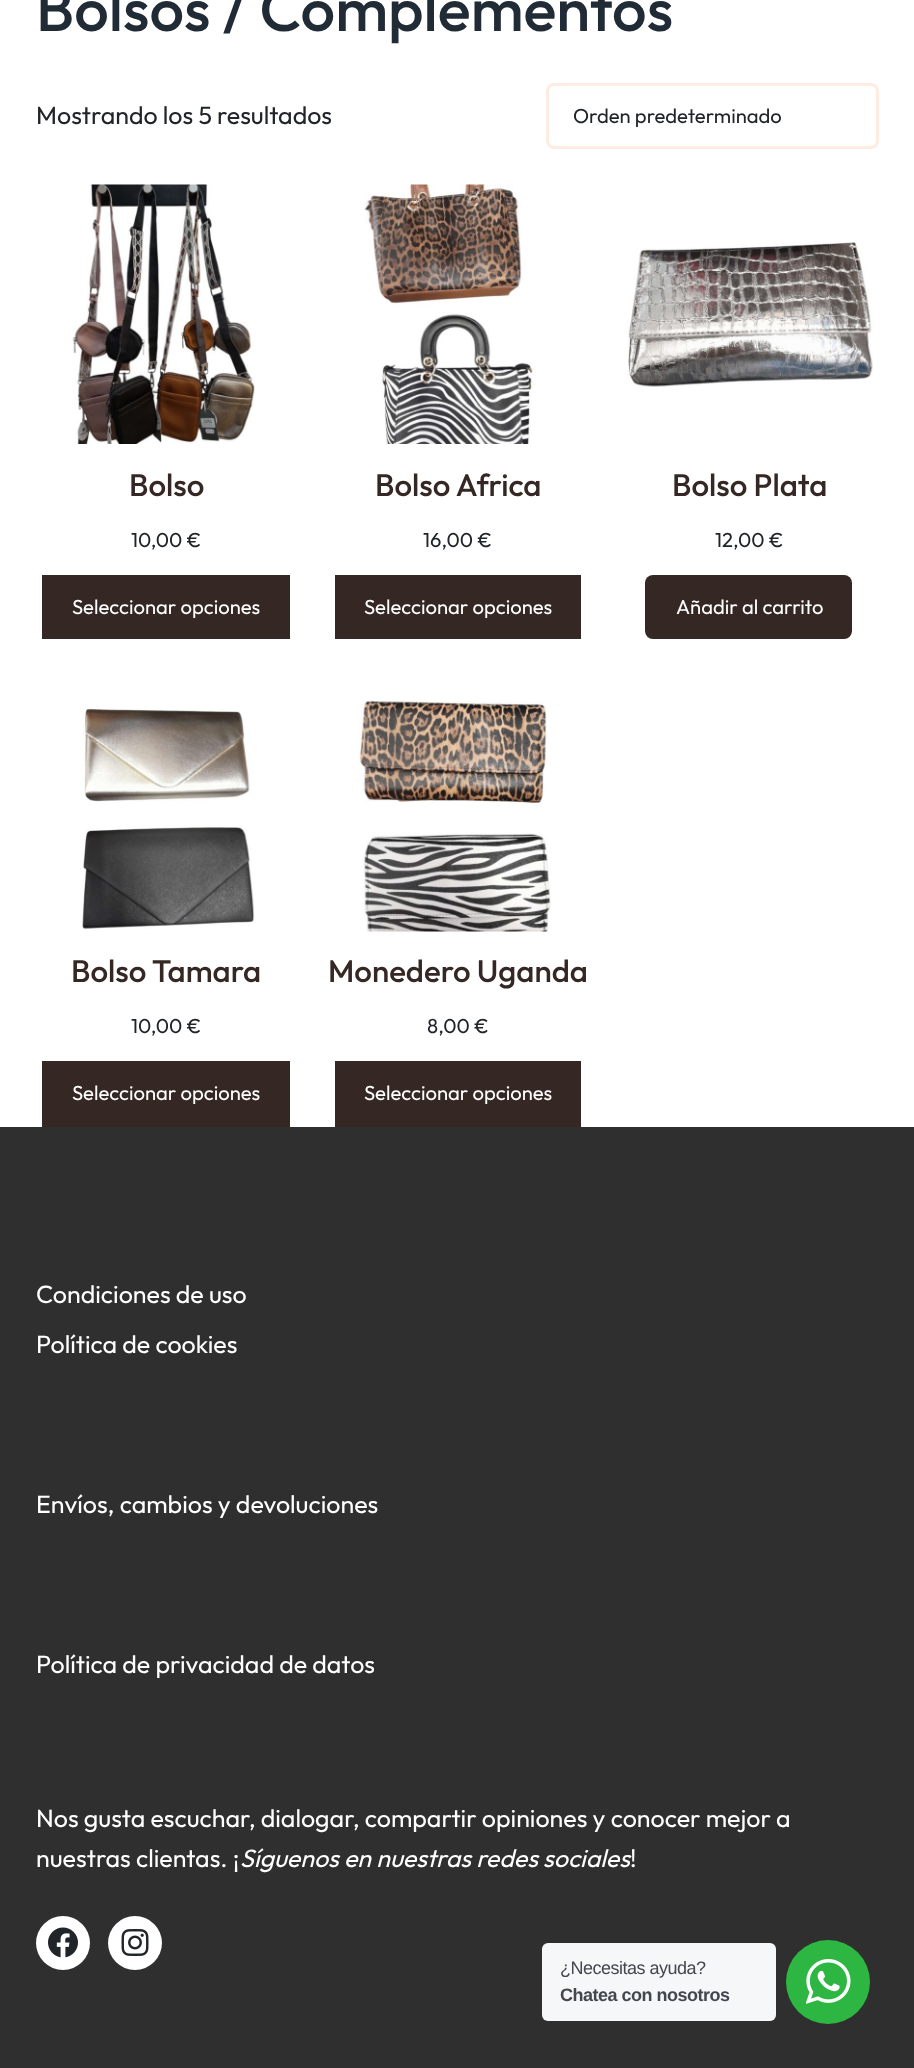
<!DOCTYPE html>
<meta charset="utf-8">
<style>body { margin: 0 } canvas { display: block }</style>
<canvas id="canvas" width="914" height="2068"></canvas>
<script type="module">
  const canvas = document.getElementById("canvas");
  const ctx = canvas.getContext("2d");
  ctx.miterLimit = 4;
  ctx.fontKerning = "normal";
  async function loadImage(src) {
    const img = new Image();
    img.src = src;
    await img.decode();
    return img;
  }

  ctx.fillStyle = "#ffffff";
  ctx.fillRect(0, 0, 914, 2068);
  ctx.font = "500 61.4px Outfit";
  ctx.fillStyle = "#212b36";
  ctx.fillText("Bolsos / Complementos", 36, 31);
  ctx.font = "25px Outfit";
  ctx.fillStyle = "#212529";
  ctx.fillText("Mostrando los 5 resultados", 36, 124);
  ctx.beginPath();
  ctx.roundRect(547.5, 84.5, 330, 63, 6.5);
  ctx.strokeStyle = "#feece2";
  ctx.lineWidth = 3;
  ctx.stroke();
  ctx.font = "20.25px Outfit";
  ctx.fillText("Orden predeterminado", 573, 123);
  ctx.drawImage(await loadImage("img1.png"), 72, 184, 183, 260);
  ctx.font = "500 31.25px Outfit";
  ctx.fillStyle = "#352824";
  ctx.fillText("Bolso", 129, 496);
  ctx.font = "20.25px Outfit";
  ctx.fillStyle = "#212529";
  ctx.fillText("10,00 €", 131, 547);
  ctx.fillStyle = "#352824";
  ctx.fillRect(42, 575, 248, 64);
  ctx.fillStyle = "#ffffff";
  ctx.fillText("Seleccionar opciones", 72, 614);
  ctx.drawImage(await loadImage("img2.png"), 364, 184, 172, 260);
  ctx.font = "500 31.25px Outfit";
  ctx.fillStyle = "#352824";
  ctx.fillText("Bolso Africa", 375, 496);
  ctx.font = "20.25px Outfit";
  ctx.fillStyle = "#212529";
  ctx.fillText("16,00 €", 423, 547);
  ctx.fillStyle = "#352824";
  ctx.fillRect(335, 575, 246, 64);
  ctx.fillStyle = "#ffffff";
  ctx.fillText("Seleccionar opciones", 364, 614);
  ctx.drawImage(await loadImage("img3.png"), 627, 242, 246, 145);
  ctx.font = "500 31.25px Outfit";
  ctx.fillStyle = "#352824";
  ctx.fillText("Bolso Plata", 672, 496);
  ctx.font = "20.25px Outfit";
  ctx.fillStyle = "#212529";
  ctx.fillText("12,00 €", 715, 547);
  ctx.fillStyle = "#352824";
  ctx.beginPath();
  ctx.roundRect(645, 575, 207, 64, 8);
  ctx.fill();
  ctx.fillStyle = "#ffffff";
  ctx.fillText("Añadir al carrito", 676, 614);
  ctx.drawImage(await loadImage("img4.png"), 82, 708, 173, 221);
  ctx.font = "500 31.25px Outfit";
  ctx.fillStyle = "#352824";
  ctx.fillText("Bolso Tamara", 71, 982);
  ctx.font = "20.25px Outfit";
  ctx.fillStyle = "#212529";
  ctx.fillText("10,00 €", 131, 1033);
  ctx.fillStyle = "#352824";
  ctx.fillRect(42, 1061, 248, 66);
  ctx.fillStyle = "#ffffff";
  ctx.fillText("Seleccionar opciones", 72, 1100);
  ctx.drawImage(await loadImage("img5.png"), 358, 700, 193, 232);
  ctx.font = "500 31.25px Outfit";
  ctx.fillStyle = "#352824";
  ctx.fillText("Monedero Uganda", 328, 982);
  ctx.font = "20.25px Outfit";
  ctx.fillStyle = "#212529";
  ctx.fillText("8,00 €", 427, 1033);
  ctx.fillStyle = "#352824";
  ctx.fillRect(335, 1061, 246, 66);
  ctx.fillStyle = "#ffffff";
  ctx.fillText("Seleccionar opciones", 364, 1100);
  ctx.fillStyle = "#2f2f2f";
  ctx.fillRect(0, 1127, 914, 941);
  ctx.font = "25px Outfit";
  ctx.fillStyle = "#ffffff";
  ctx.fillText("Condiciones de uso", 36, 1303);
  ctx.fillText("Política de cookies", 36, 1353);
  ctx.fillText("Envíos, cambios y devoluciones", 36, 1513);
  ctx.fillText("Política de privacidad de datos", 36, 1673);
  ctx.fillText("Nos gusta escuchar, dialogar, compartir opiniones y conocer mejor a", 36, 1827);
  ctx.fillText("nuestras clientas. ¡", 36, 1867);
  ctx.font = "italic 25px Outfit";
  ctx.fillText("Síguenos en nuestras redes sociales", 240, 1867);
  ctx.font = "25px Outfit";
  ctx.fillText("!", 630, 1867);
  ctx.beginPath();
  ctx.arc(63, 1943, 27, 0, Math.PI * 2);
  ctx.fill();
  ctx.drawImage(await loadImage("img6.png"), 48, 1927, 30, 31);
  ctx.beginPath();
  ctx.arc(135, 1943, 27, 0, Math.PI * 2);
  ctx.fill();
  ctx.drawImage(await loadImage("img7.png"), 121, 1929, 28, 27);
  ctx.fillStyle = "#f5f7f9";
  ctx.beginPath();
  ctx.roundRect(542, 1943, 234, 78, 6);
  ctx.fill();
  ctx.letterSpacing = "-0.5px";
  ctx.font = "18px Liberation Sans";
  ctx.fillStyle = "#43474e";
  ctx.fillText("¿Necesitas ayuda?", 560, 1974);
  ctx.font = "bold 18px Liberation Sans";
  ctx.fillText("Chatea con nosotros", 560, 2001);
  ctx.fillStyle = "#2db742";
  ctx.beginPath();
  ctx.arc(828, 1982, 42, 0, Math.PI * 2);
  ctx.fill();
  ctx.drawImage(await loadImage("img8.png"), 806, 1959, 45, 45);
</script>
